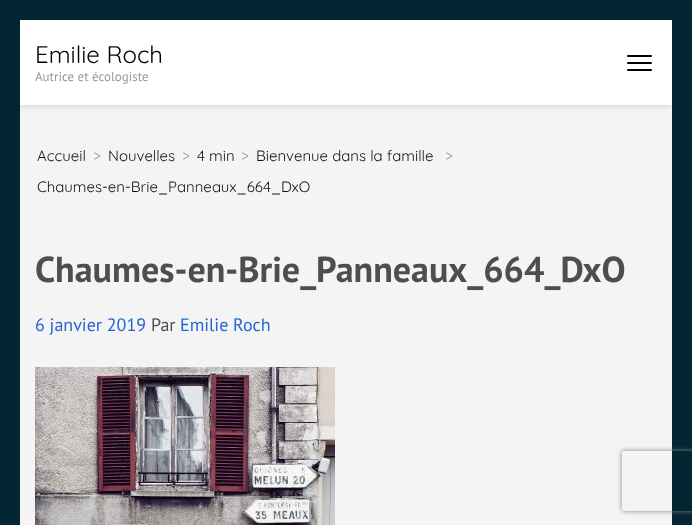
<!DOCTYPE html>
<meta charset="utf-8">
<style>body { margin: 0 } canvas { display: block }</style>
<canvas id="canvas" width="692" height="525"></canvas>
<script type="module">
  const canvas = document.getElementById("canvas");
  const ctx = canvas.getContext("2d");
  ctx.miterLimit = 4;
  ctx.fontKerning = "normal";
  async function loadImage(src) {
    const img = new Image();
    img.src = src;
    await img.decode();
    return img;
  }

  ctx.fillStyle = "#032632";
  ctx.fillRect(0, 0, 692, 525);
  ctx.fillStyle = "#f4f4f4";
  ctx.fillRect(20, 105, 652, 420);
  ctx.fillStyle = "rgba(0, 0, 0, 0.1)";
  ctx.filter = "blur(2.5px)";
  ctx.beginPath();
  ctx.rect(20, 22, 652, 85);
  ctx.fill();
  ctx.filter = "none";
  ctx.fillStyle = "#ffffff";
  ctx.fillRect(20, 20, 652, 85);
  ctx.font = "24px Quicksand";
  ctx.fillStyle = "#000000";
  ctx.fillText("Emilie Roch", 35, 63);
  ctx.font = "13px PT Sans";
  ctx.fillStyle = "#999999";
  ctx.fillText("Autrice et écologiste", 35, 81);
  ctx.fillStyle = "#000000";
  ctx.beginPath();
  ctx.roundRect(627, 55, 25, 2, 1);
  ctx.fill();
  ctx.beginPath();
  ctx.roundRect(627, 62, 25, 2, 1);
  ctx.fill();
  ctx.beginPath();
  ctx.roundRect(627, 69, 25, 2, 1);
  ctx.fill();
  ctx.font = "15px Quicksand";
  ctx.fillStyle = "#121212";
  ctx.fillText("Accueil", 37, 161);
  ctx.fillStyle = "#999999";
  ctx.fillText(">", 93, 161);
  ctx.fillStyle = "#121212";
  ctx.fillText("Nouvelles", 108, 161);
  ctx.fillStyle = "#999999";
  ctx.fillText(">", 182, 161);
  ctx.fillStyle = "#121212";
  ctx.fillText("4 min", 197, 161);
  ctx.fillStyle = "#999999";
  ctx.fillText(">", 241, 161);
  ctx.fillStyle = "#121212";
  ctx.fillText("Bienvenue dans la famille", 256, 161);
  ctx.fillStyle = "#999999";
  ctx.fillText(">", 445, 161);
  ctx.fillStyle = "#121212";
  ctx.fillText("Chaumes-en-Brie_Panneaux_664_DxO", 37, 192);
  ctx.font = "bold 36px PT Sans";
  ctx.fillStyle = "#4e4e4e";
  ctx.fillText("Chaumes-en-Brie_Panneaux_664_DxO", 35, 282);
  ctx.font = "18px PT Sans";
  ctx.fillStyle = "#1f65d6";
  ctx.fillText("6 janvier 2019", 35, 331);
  ctx.fillStyle = "#4e4e4e";
  ctx.fillText("Par", 151, 331);
  ctx.fillStyle = "#1f65d6";
  ctx.fillText("Emilie Roch", 180, 331);
  ctx.drawImage(await loadImage("img1.png"), 35, 367, 300, 158);
  ctx.save();
  ctx.beginPath();
  ctx.moveTo(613, 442);
  ctx.lineTo(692, 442);
  ctx.lineTo(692, 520);
  ctx.lineTo(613, 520);
  ctx.closePath();
  ctx.moveTo(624, 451);
  ctx.lineTo(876, 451);
  ctx.bezierCurveTo(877, 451, 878, 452, 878, 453);
  ctx.lineTo(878, 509);
  ctx.bezierCurveTo(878, 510, 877, 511, 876, 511);
  ctx.lineTo(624, 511);
  ctx.bezierCurveTo(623, 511, 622, 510, 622, 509);
  ctx.lineTo(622, 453);
  ctx.bezierCurveTo(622, 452, 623, 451, 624, 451);
  ctx.closePath();
  ctx.clip("evenodd");
  ctx.fillStyle = "#808080";
  ctx.filter = "blur(2.5px)";
  ctx.beginPath();
  ctx.roundRect(622, 451, 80, 60, 2);
  ctx.fill();
  ctx.filter = "none";
  ctx.restore();
</script>
